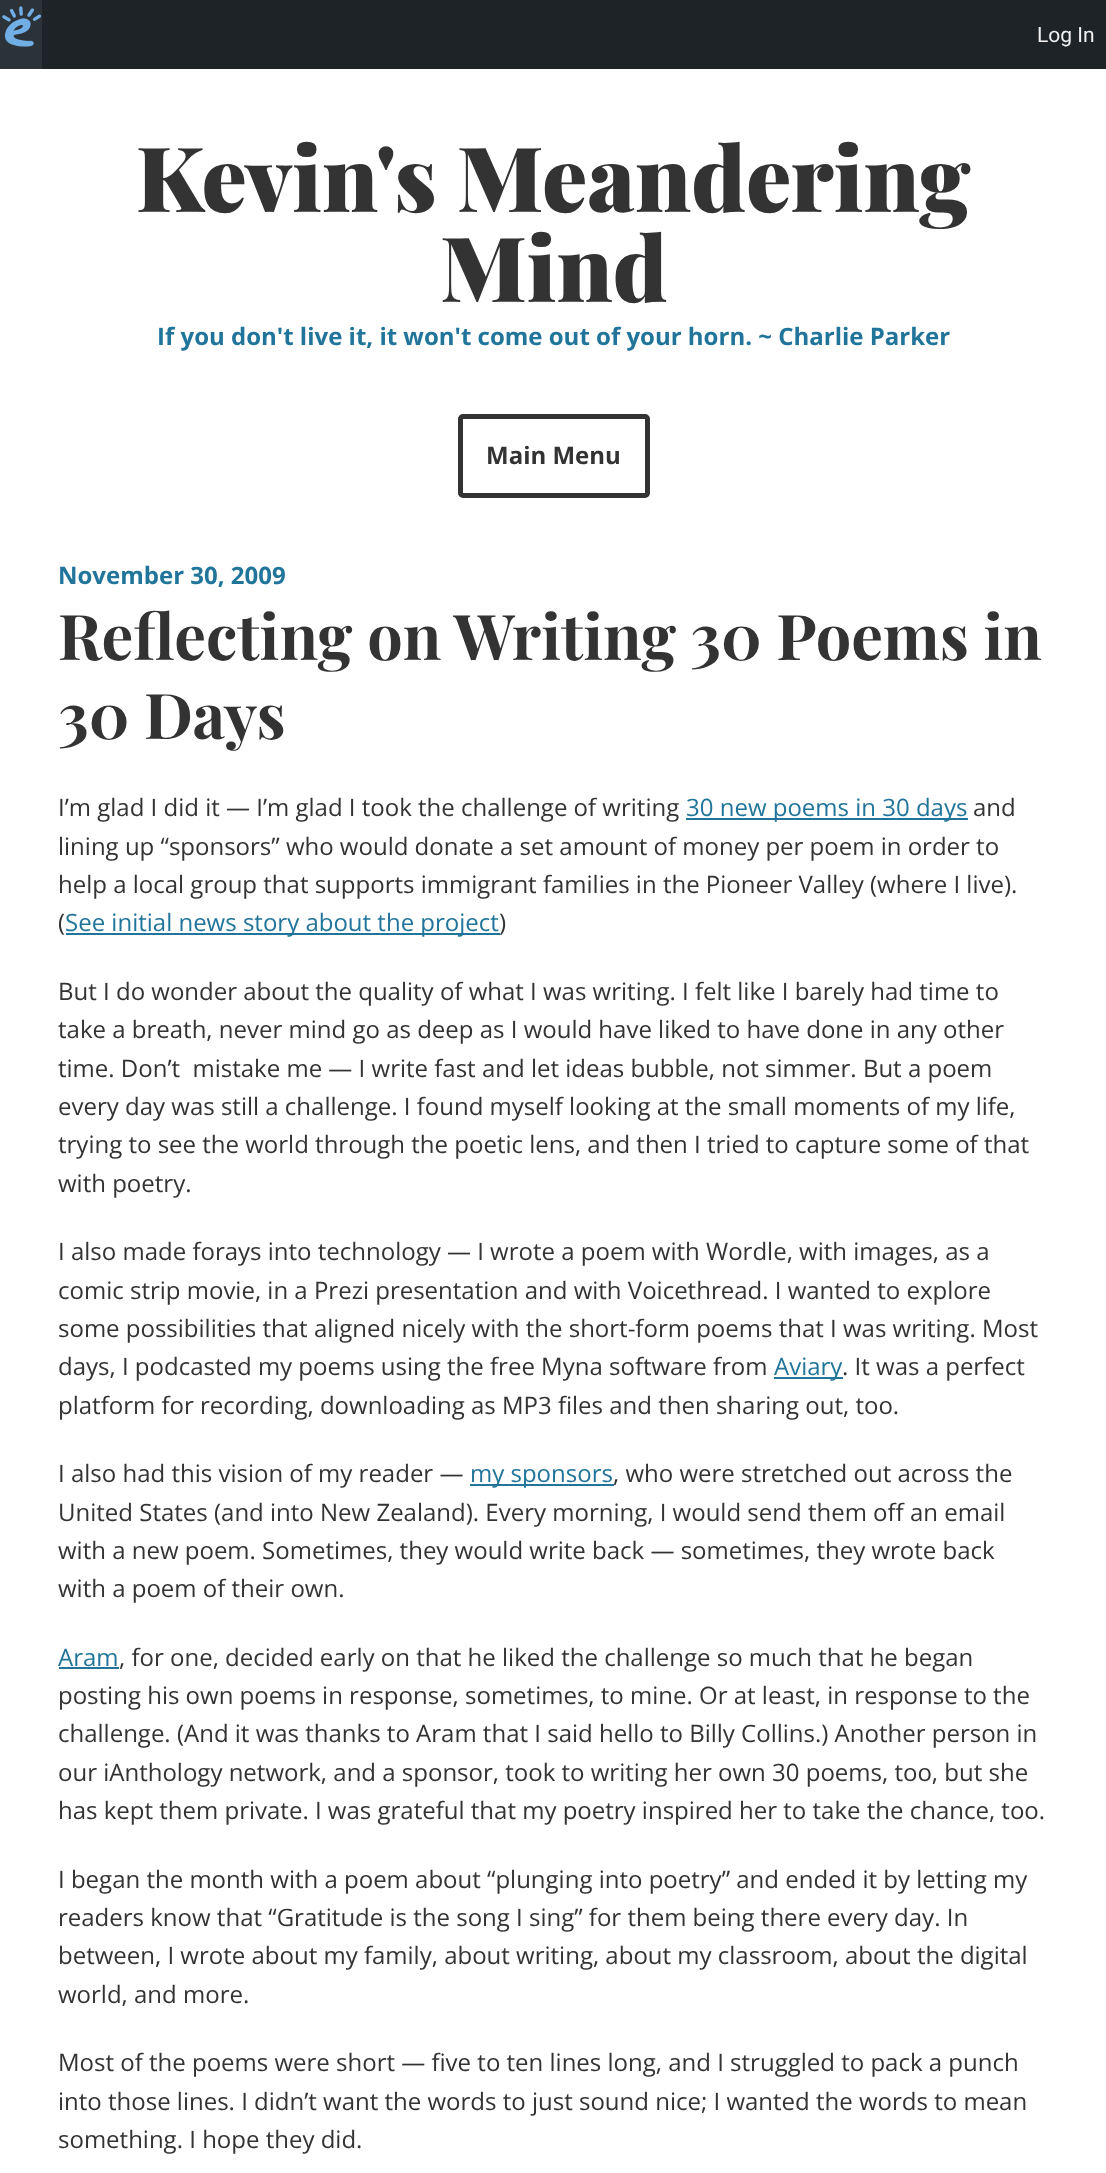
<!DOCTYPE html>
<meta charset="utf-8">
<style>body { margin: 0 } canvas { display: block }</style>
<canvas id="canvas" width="1106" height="2173"></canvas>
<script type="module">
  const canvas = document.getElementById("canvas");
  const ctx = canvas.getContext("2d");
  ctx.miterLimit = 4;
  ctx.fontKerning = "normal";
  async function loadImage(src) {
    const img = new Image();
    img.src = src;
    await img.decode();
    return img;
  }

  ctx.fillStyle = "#ffffff";
  ctx.fillRect(0, 0, 1106, 2173);
  ctx.fillStyle = "#1d2327";
  ctx.fillRect(42, 0, 1064, 69);
  ctx.fillStyle = "#2c3338";
  ctx.fillRect(0, 0, 42, 69);
  ctx.drawImage(await loadImage("img1.png"), 2, 6, 40, 41);
  ctx.font = "21px Roboto";
  ctx.fillStyle = "#f0f0f1";
  ctx.fillText("Log In", 1037, 42);
  ctx.font = "900 90px Playfair Display";
  ctx.fillStyle = "#333333";
  ctx.fillText("Kevin's Meandering", 136, 212);
  ctx.fillText("Mind", 440, 302);
  ctx.font = "bold 24px Open Sans";
  ctx.fillStyle = "#21759b";
  ctx.fillText("If you don't live it, it won't come out of your horn. ~ Charlie Parker", 157, 345);
  ctx.beginPath();
  ctx.roundRect(460.5, 416.5, 187, 79, 2.5);
  ctx.strokeStyle = "#333333";
  ctx.lineWidth = 5;
  ctx.stroke();
  ctx.fillStyle = "#333333";
  ctx.fillText("Main Menu", 486, 464);
  ctx.fillStyle = "#21759b";
  ctx.fillText("November 30, 2009", 58, 584);
  ctx.font = "bold 63px Playfair Display";
  ctx.fillStyle = "#333333";
  ctx.fillText("Reflecting on Writing 30 Poems in", 58, 660);
  ctx.fillText("30 Days", 58, 739);
  ctx.font = "24px Open Sans";
  ctx.fillText("I’m glad I did it — I’m glad I took the challenge of writing", 58, 816);
  ctx.fillStyle = "#21759b";
  ctx.fillRect(686, 818, 282, 2);
  ctx.fillText("30 new poems in 30 days", 686, 816);
  ctx.fillStyle = "#333333";
  ctx.fillText("and", 973, 816);
  ctx.fillText("lining up “sponsors” who would donate a set amount of money per poem in order to", 58, 855);
  ctx.fillText("help a local group that supports immigrant families in the Pioneer Valley (where I live).", 58, 893);
  ctx.fillText("(", 58, 931);
  ctx.fillStyle = "#21759b";
  ctx.fillRect(66, 933, 434, 2);
  ctx.fillText("See initial news story about the project", 65, 931);
  ctx.fillStyle = "#333333";
  ctx.fillText(")", 499, 931);
  ctx.fillText("But I do wonder about the quality of what I was writing. I felt like I barely had time to", 58, 1000);
  ctx.fillText("take a breath, never mind go as deep as I would have liked to have done in any other", 58, 1038);
  ctx.fillText("time. Don’t  mistake me — I write fast and let ideas bubble, not simmer. But a poem", 58, 1077);
  ctx.fillText("every day was still a challenge. I found myself looking at the small moments of my life,", 58, 1115);
  ctx.fillText("trying to see the world through the poetic lens, and then I tried to capture some of that", 58, 1153);
  ctx.fillText("with poetry.", 58, 1192);
  ctx.fillText("I also made forays into technology — I wrote a poem with Wordle, with images, as a", 58, 1260);
  ctx.fillText("comic strip movie, in a Prezi presentation and with Voicethread. I wanted to explore", 58, 1299);
  ctx.fillText("some possibilities that aligned nicely with the short-form poems that I was writing. Most", 58, 1337);
  ctx.fillText("days, I podcasted my poems using the free Myna software from", 58, 1375);
  ctx.fillStyle = "#21759b";
  ctx.fillRect(774, 1377, 69, 2);
  ctx.fillText("Aviary", 774, 1375);
  ctx.fillStyle = "#333333";
  ctx.fillText(". It was a perfect", 842, 1375);
  ctx.fillText("platform for recording, downloading as MP3 files and then sharing out, too.", 58, 1414);
  ctx.fillText("I also had this vision of my reader —", 58, 1482);
  ctx.fillStyle = "#21759b";
  ctx.fillRect(470, 1484, 144, 2);
  ctx.fillText("my sponsors", 470, 1482);
  ctx.fillStyle = "#333333";
  ctx.fillText(", who were stretched out across the", 613, 1482);
  ctx.fillText("United States (and into New Zealand). Every morning, I would send them off an email", 58, 1521);
  ctx.fillText("with a new poem. Sometimes, they would write back — sometimes, they wrote back", 58, 1559);
  ctx.fillText("with a poem of their own.", 58, 1597);
  ctx.fillStyle = "#21759b";
  ctx.fillText("Aram", 58, 1666);
  ctx.fillRect(59, 1667, 60, 2);
  ctx.fillStyle = "#333333";
  ctx.fillText(", for one, decided early on that he liked the challenge so much that he began", 119, 1666);
  ctx.fillText("posting his own poems in response, sometimes, to mine. Or at least, in response to the", 58, 1704);
  ctx.fillText("challenge. (And it was thanks to Aram that I said hello to Billy Collins.) Another person in", 58, 1742);
  ctx.fillText("our iAnthology network, and a sponsor, took to writing her own 30 poems, too, but she", 58, 1781);
  ctx.fillText("has kept them private. I was grateful that my poetry inspired her to take the chance, too.", 58, 1819);
  ctx.fillText("I began the month with a poem about “plunging into poetry” and ended it by letting my", 58, 1888);
  ctx.fillText("readers know that “Gratitude is the song I sing” for them being there every day. In", 58, 1926);
  ctx.fillText("between, I wrote about my family, about writing, about my classroom, about the digital", 58, 1964);
  ctx.fillText("world, and more.", 58, 2003);
  ctx.fillText("Most of the poems were short — five to ten lines long, and I struggled to pack a punch", 58, 2071);
  ctx.fillText("into those lines. I didn’t want the words to just sound nice; I wanted the words to mean", 58, 2110);
  ctx.fillText("something. I hope they did.", 58, 2148);
</script>
